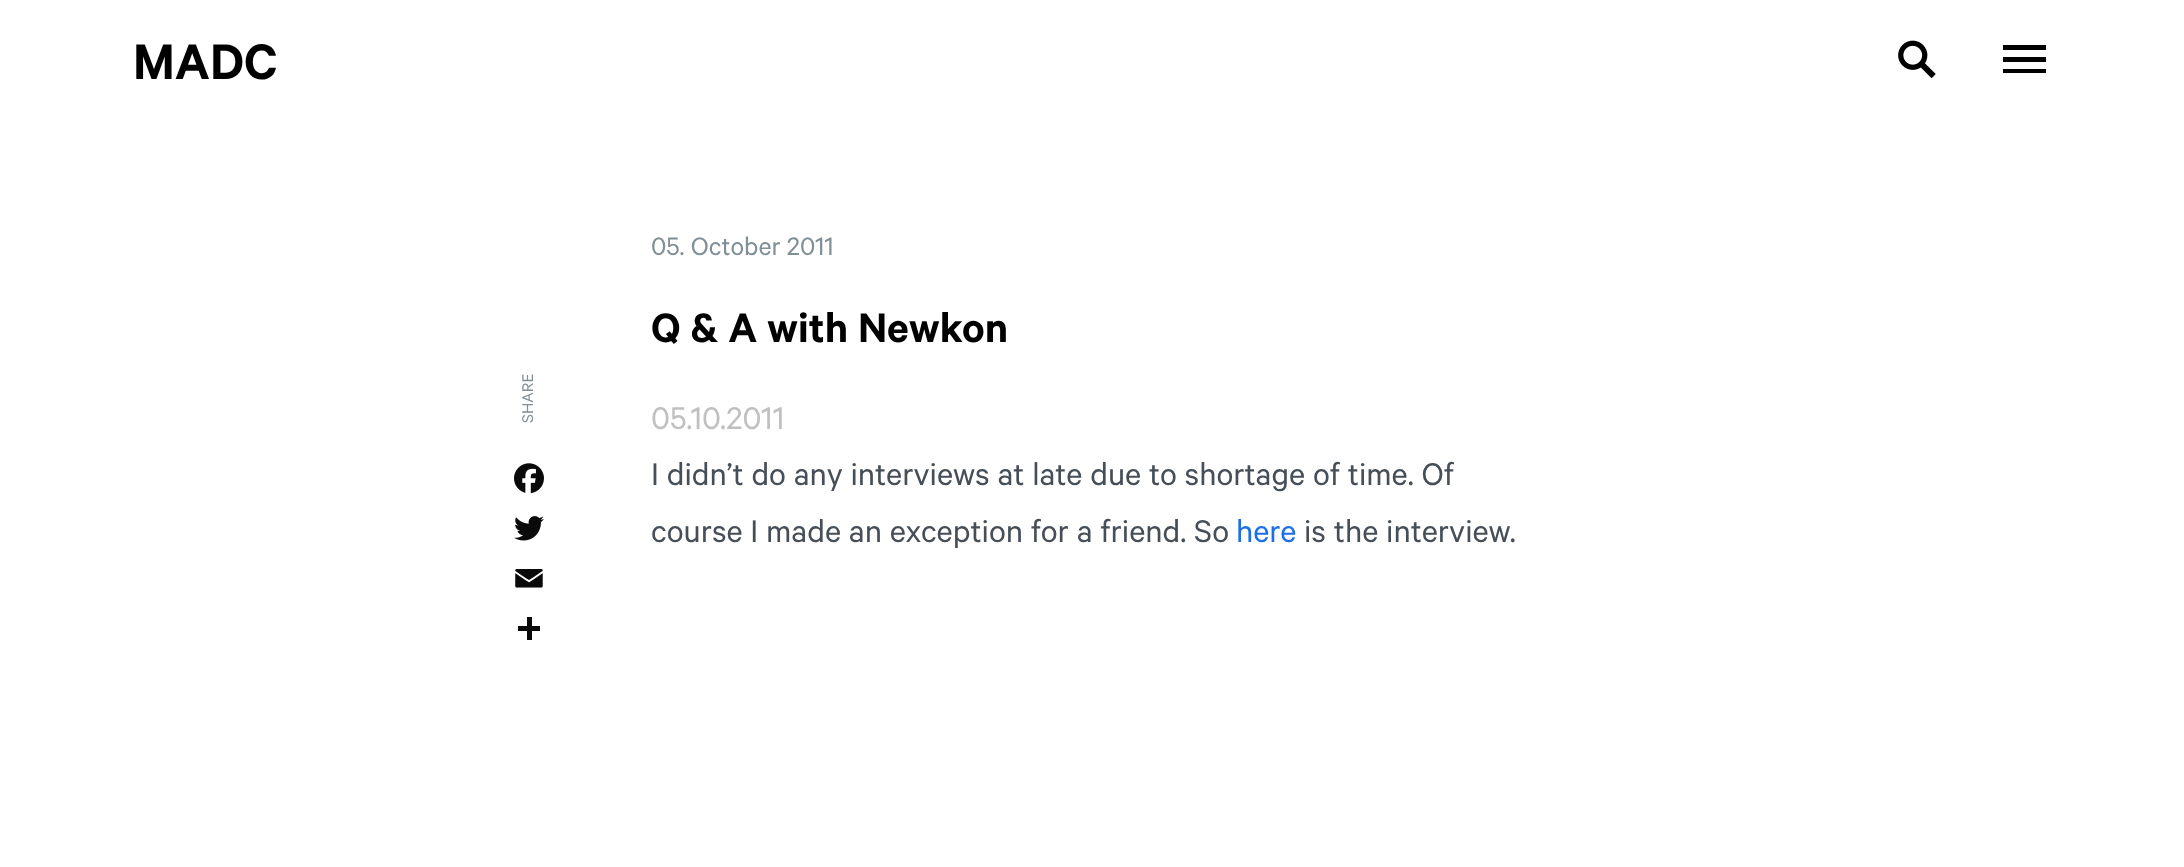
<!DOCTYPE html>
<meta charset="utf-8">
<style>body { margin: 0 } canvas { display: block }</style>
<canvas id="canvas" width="2184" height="867"></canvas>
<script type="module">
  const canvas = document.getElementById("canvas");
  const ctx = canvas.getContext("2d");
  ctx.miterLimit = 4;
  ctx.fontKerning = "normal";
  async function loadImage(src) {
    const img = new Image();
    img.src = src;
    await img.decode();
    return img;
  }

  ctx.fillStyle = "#ffffff";
  ctx.fillRect(0, 0, 2184, 867);
  ctx.font = "600 56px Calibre";
  ctx.fillStyle = "#000000";
  ctx.fillText("MADC", 133, 79);
  ctx.drawImage(await loadImage("img1.png"), 1898, 40, 38, 39);
  ctx.beginPath();
  ctx.moveTo(2003, 45);
  ctx.lineTo(2046, 45);
  ctx.lineTo(2046, 50);
  ctx.lineTo(2003, 50);
  ctx.closePath();
  ctx.moveTo(2003, 62);
  ctx.lineTo(2003, 57);
  ctx.lineTo(2046, 57);
  ctx.lineTo(2046, 62);
  ctx.closePath();
  ctx.moveTo(2003, 73);
  ctx.lineTo(2003, 69);
  ctx.lineTo(2046, 69);
  ctx.lineTo(2046, 73);
  ctx.closePath();
  ctx.fill();
  ctx.font = "17.5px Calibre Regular";
  ctx.fillStyle = "#818f96";
  ctx.save();
  ctx.translate(533, 423);
  ctx.rotate(-90 * Math.PI / 180);
  ctx.fillText("SHARE", 0, 0);
  ctx.restore();
  ctx.drawImage(await loadImage("img2.png"), 514, 463, 30, 31);
  ctx.drawImage(await loadImage("img3.png"), 514, 516, 30, 25);
  ctx.drawImage(await loadImage("img4.png"), 515, 569, 28, 19);
  ctx.fillStyle = "#0a0a0a";
  ctx.fillRect(527, 617, 5, 23);
  ctx.fillRect(518, 626, 22, 5);
  ctx.font = "28.5px Calibre Regular";
  ctx.fillStyle = "#818f96";
  ctx.fillText("05. October 2011", 651, 255);
  ctx.font = "600 46.25px Calibre";
  ctx.fillStyle = "#000000";
  ctx.fillText("Q & A with Newkon", 651, 342);
  ctx.font = "35.25px Calibre Regular";
  ctx.fillStyle = "#c0c0c0";
  ctx.fillText("05.10.2011", 651, 429);
  ctx.fillStyle = "#464e57";
  ctx.fillText("I didn’t do any interviews at late due to shortage of time. Of", 651, 485);
  ctx.fillText("course I made an exception for a friend. So", 651, 542);
  ctx.fillStyle = "#1c6fe9";
  ctx.fillText("here", 1236, 542);
  ctx.fillStyle = "#464e57";
  ctx.fillText("is the interview.", 1304, 542);
</script>
